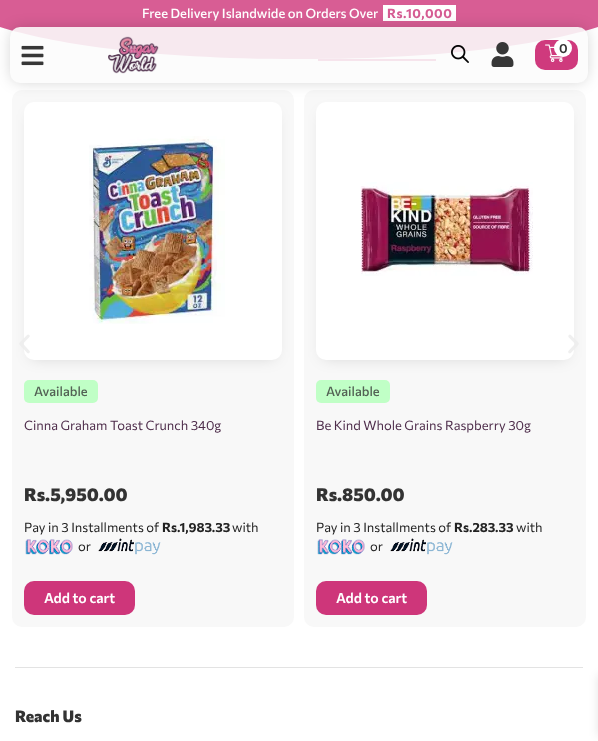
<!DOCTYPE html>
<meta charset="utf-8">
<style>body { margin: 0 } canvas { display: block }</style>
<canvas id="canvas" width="598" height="741"></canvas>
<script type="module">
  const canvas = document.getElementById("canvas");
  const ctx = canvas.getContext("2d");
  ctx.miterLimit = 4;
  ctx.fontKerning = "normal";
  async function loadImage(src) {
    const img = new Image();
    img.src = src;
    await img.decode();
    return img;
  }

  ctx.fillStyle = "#ffffff";
  ctx.fillRect(0, 0, 598, 741);
  ctx.fillStyle = "#d85d94";
  ctx.beginPath();
  ctx.moveTo(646, 2);
  ctx.lineTo(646, -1);
  ctx.lineTo(-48, -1);
  ctx.lineTo(-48, 2);
  ctx.bezierCurveTo(-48, 13, 40, 59, 299, 59);
  ctx.bezierCurveTo(558, 59, 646, 13, 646, 2);
  ctx.closePath();
  ctx.fill();
  ctx.font = "500 13px Commissioner";
  ctx.fillStyle = "#ffffff";
  ctx.fillText("Free Delivery Islandwide on Orders Over", 142, 18);
  ctx.fillRect(383, 5, 73, 16);
  ctx.letterSpacing = "0.5px";
  ctx.font = "bold 13px Commissioner";
  ctx.fillStyle = "#d65c93";
  ctx.fillText("Rs.10,000", 387, 18);
  ctx.fillStyle = "#ce3678";
  ctx.fillRect(318, 59, 118, 2);
  ctx.fillStyle = "#f8f8f8";
  ctx.beginPath();
  ctx.roundRect(12, 90, 282, 537, 10);
  ctx.fill();
  ctx.fillStyle = "rgba(0, 0, 0, 0.15)";
  ctx.filter = "blur(7.5px)";
  ctx.beginPath();
  ctx.roundRect(31, 114, 244, 244, 3);
  ctx.fill();
  ctx.filter = "none";
  ctx.fillStyle = "#ffffff";
  ctx.beginPath();
  ctx.roundRect(24, 102, 258, 258, 10);
  ctx.fill();
  ctx.fillStyle = "#f8f8f8";
  ctx.beginPath();
  ctx.roundRect(304, 90, 282, 537, 10);
  ctx.fill();
  ctx.fillStyle = "rgba(0, 0, 0, 0.15)";
  ctx.filter = "blur(7.5px)";
  ctx.beginPath();
  ctx.roundRect(323, 114, 244, 244, 3);
  ctx.fill();
  ctx.filter = "none";
  ctx.fillStyle = "#ffffff";
  ctx.beginPath();
  ctx.roundRect(316, 102, 258, 258, 10);
  ctx.fill();
  ctx.save();
  ctx.beginPath();
  ctx.moveTo(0, 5);
  ctx.lineTo(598, 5);
  ctx.lineTo(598, 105);
  ctx.lineTo(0, 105);
  ctx.closePath();
  ctx.moveTo(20, 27);
  ctx.lineTo(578, 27);
  ctx.bezierCurveTo(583.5, 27, 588, 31.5, 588, 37);
  ctx.lineTo(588, 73);
  ctx.bezierCurveTo(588, 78.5, 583.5, 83, 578, 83);
  ctx.lineTo(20, 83);
  ctx.bezierCurveTo(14.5, 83, 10, 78.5, 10, 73);
  ctx.lineTo(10, 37);
  ctx.bezierCurveTo(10, 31.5, 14.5, 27, 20, 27);
  ctx.closePath();
  ctx.clip("evenodd");
  ctx.fillStyle = "rgba(0, 0, 0, 0.2)";
  ctx.filter = "blur(7.5px)";
  ctx.beginPath();
  ctx.roundRect(12, 29, 574, 52, 8);
  ctx.fill();
  ctx.filter = "none";
  ctx.restore();
  ctx.fillStyle = "rgba(0, 0, 0, 0.1)";
  ctx.beginPath();
  ctx.roundRect(10, 27, 578, 56, 10);
  ctx.fill();
  ctx.fillStyle = "rgba(255, 255, 255, 0.87)";
  ctx.filter = "blur(0.5px)";
  ctx.beginPath();
  ctx.roundRect(10, 27, 578, 56, 10);
  ctx.fill();
  ctx.filter = "none";
  ctx.drawImage(await loadImage("img1.png"), 21, 45, 23, 21);
  ctx.drawImage(await loadImage("img2.png"), 108, 36, 51, 38);
  ctx.drawImage(await loadImage("img3.png"), 451, 45, 18, 18);
  ctx.drawImage(await loadImage("img4.png"), 491, 42, 23, 25);
  ctx.fillStyle = "rgba(206, 54, 122, 0.98)";
  ctx.beginPath();
  ctx.roundRect(535, 40, 43, 30, 10);
  ctx.fill();
  ctx.drawImage(await loadImage("img5.png"), 545, 44, 18, 18);
  ctx.fillStyle = "#ffffff";
  ctx.beginPath();
  ctx.arc(563, 48, 9, 0, Math.PI * 2);
  ctx.fill();
  ctx.letterSpacing = "0px";
  ctx.font = "600 13px Commissioner";
  ctx.fillStyle = "#333333";
  ctx.fillText("0", 559, 53);
  ctx.drawImage(await loadImage("img6.png"), 19, 334, 11, 20);
  ctx.drawImage(await loadImage("img7.png"), 568, 334, 11, 20);
  ctx.drawImage(await loadImage("img8.png"), 89, 136, 136, 188);
  ctx.fillStyle = "#c0ffc6";
  ctx.beginPath();
  ctx.roundRect(24, 380, 74, 23, 5);
  ctx.fill();
  ctx.font = "500 13px Commissioner";
  ctx.fillStyle = "#536255";
  ctx.fillText("Available", 34, 396);
  ctx.font = "13px Commissioner";
  ctx.fillStyle = "#4e2d4b";
  ctx.fillText("Cinna Graham Toast Crunch 340g", 24, 430);
  ctx.font = "800 18px Commissioner";
  ctx.fillStyle = "#333333";
  ctx.fillText("Rs.5,950.00", 24, 501);
  ctx.font = "13px Commissioner";
  ctx.fillStyle = "#222222";
  ctx.fillText("Pay in 3 Installments of", 24, 532);
  ctx.font = "bold 13px Commissioner";
  ctx.fillText("Rs.1,983.33", 162, 532);
  ctx.font = "13px Commissioner";
  ctx.fillText("with", 232, 532);
  ctx.drawImage(await loadImage("img9.png"), 25, 539, 48, 16);
  ctx.fillText("or", 78, 551);
  ctx.drawImage(await loadImage("img10.png"), 98, 538, 63, 17);
  ctx.fillStyle = "#ce367a";
  ctx.beginPath();
  ctx.roundRect(24, 581, 111, 34, 10);
  ctx.fill();
  ctx.font = "600 14px Commissioner";
  ctx.fillStyle = "#ffffff";
  ctx.fillText("Add to cart", 44, 603);
  ctx.drawImage(await loadImage("img11.png"), 360, 182, 173, 94);
  ctx.fillStyle = "#c0ffc6";
  ctx.beginPath();
  ctx.roundRect(316, 380, 74, 23, 5);
  ctx.fill();
  ctx.font = "500 13px Commissioner";
  ctx.fillStyle = "#536255";
  ctx.fillText("Available", 326, 396);
  ctx.font = "13px Commissioner";
  ctx.fillStyle = "#4e2d4b";
  ctx.fillText("Be Kind Whole Grains Raspberry 30g", 316, 430);
  ctx.font = "800 18px Commissioner";
  ctx.fillStyle = "#333333";
  ctx.fillText("Rs.850.00", 316, 501);
  ctx.font = "13px Commissioner";
  ctx.fillStyle = "#222222";
  ctx.fillText("Pay in 3 Installments of", 316, 532);
  ctx.font = "bold 13px Commissioner";
  ctx.fillText("Rs.283.33", 454, 532);
  ctx.font = "13px Commissioner";
  ctx.fillText("with", 516, 532);
  ctx.drawImage(await loadImage("img12.png"), 317, 539, 48, 16);
  ctx.fillText("or", 370, 551);
  ctx.drawImage(await loadImage("img13.png"), 390, 538, 63, 17);
  ctx.fillStyle = "#ce367a";
  ctx.beginPath();
  ctx.roundRect(316, 581, 111, 34, 10);
  ctx.fill();
  ctx.font = "600 14px Commissioner";
  ctx.fillStyle = "#ffffff";
  ctx.fillText("Add to cart", 336, 603);
  ctx.fillStyle = "#e3e3e3";
  ctx.fillRect(15, 667, 568, 1);
  ctx.font = "800 16px Commissioner";
  ctx.fillStyle = "#333333";
  ctx.fillText("Reach Us", 15, 722);
  ctx.fillStyle = "rgba(0, 0, 0, 0.1)";
  ctx.filter = "blur(5px)";
  ctx.beginPath();
  ctx.rect(598, 675, 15, 61);
  ctx.fill();
  ctx.filter = "none";
</script>
